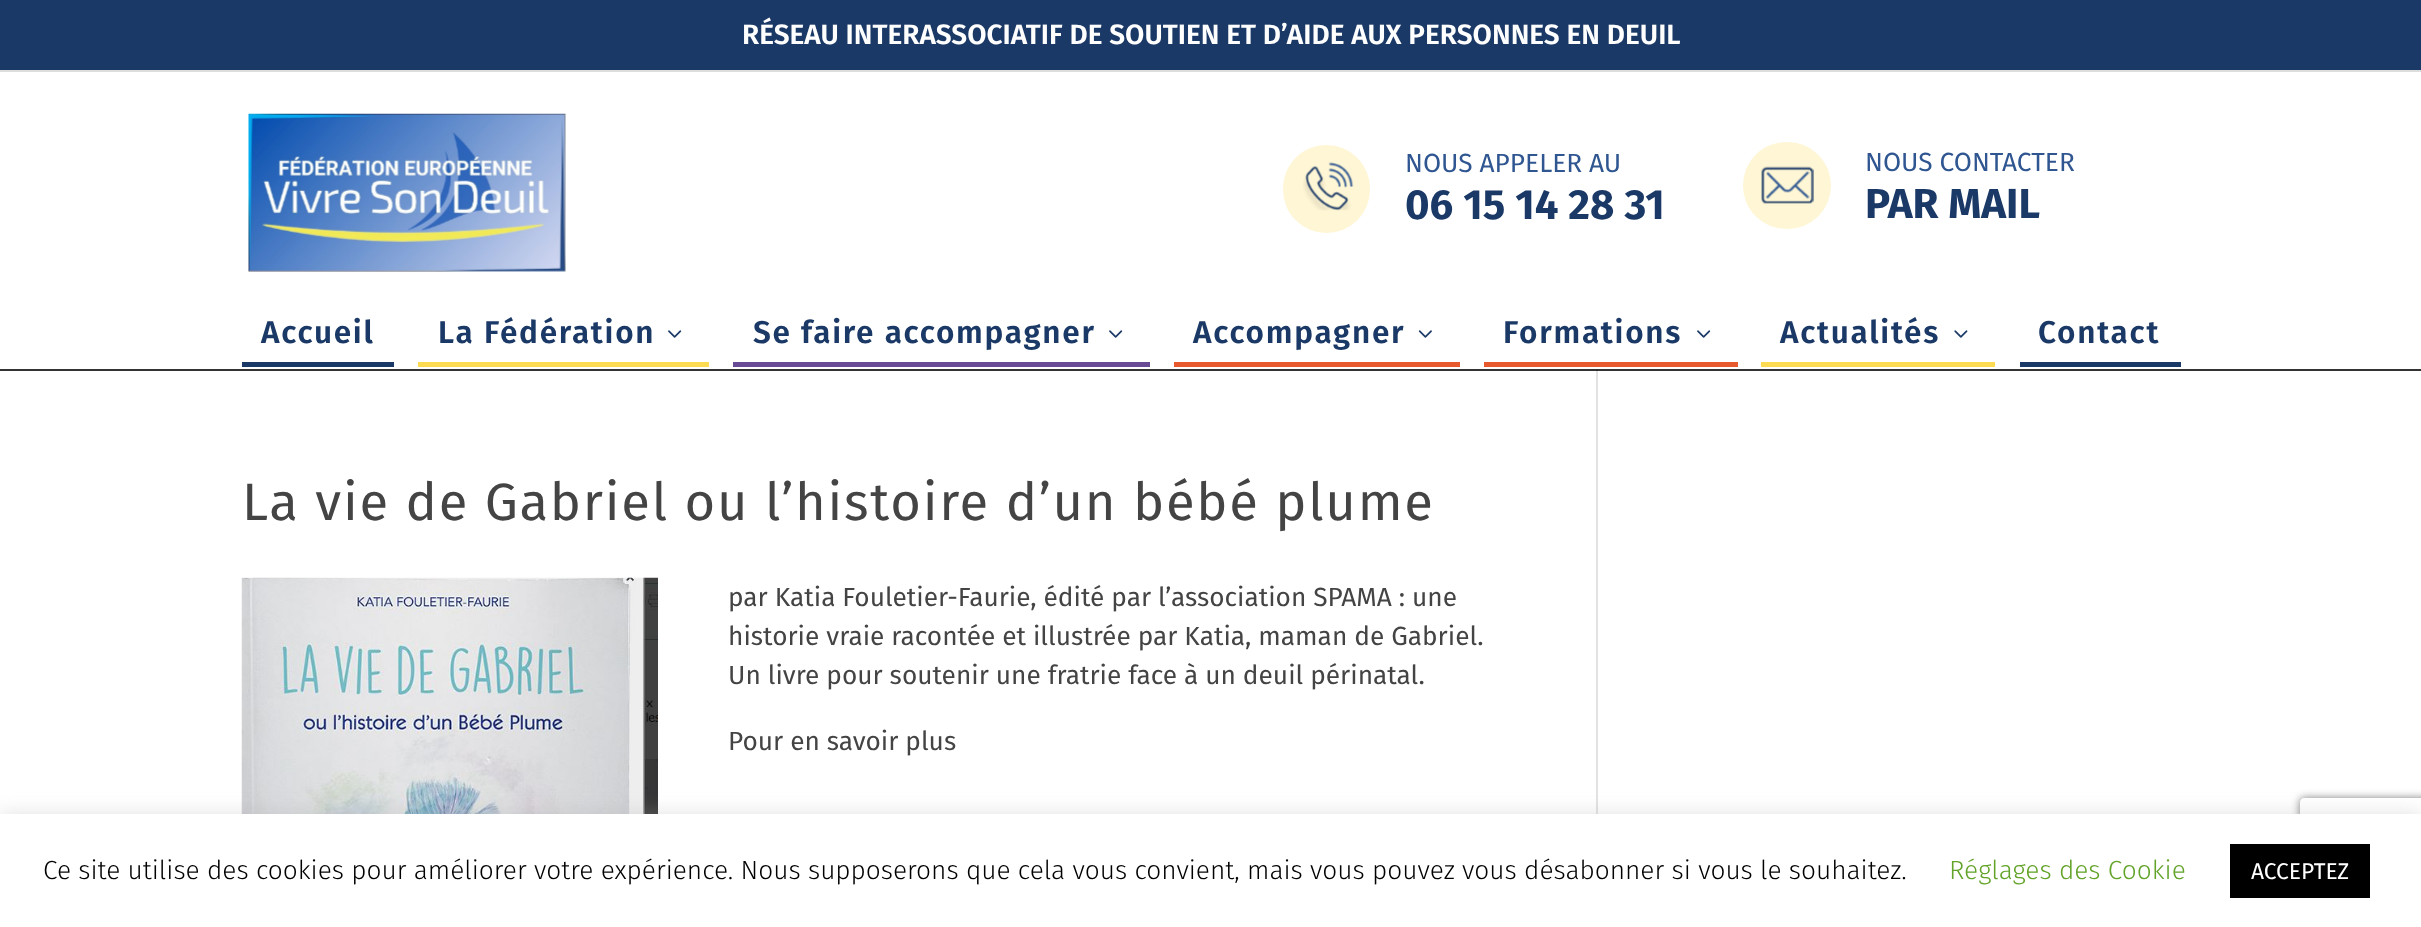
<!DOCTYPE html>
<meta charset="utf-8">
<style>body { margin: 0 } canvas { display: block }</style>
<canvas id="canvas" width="2421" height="927"></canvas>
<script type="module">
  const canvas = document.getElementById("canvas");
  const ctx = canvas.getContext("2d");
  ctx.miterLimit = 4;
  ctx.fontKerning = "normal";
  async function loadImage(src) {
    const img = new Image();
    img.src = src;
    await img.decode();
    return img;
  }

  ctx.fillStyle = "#ffffff";
  ctx.fillRect(0, 0, 2421, 927);
  ctx.fillStyle = "#333333";
  ctx.fillRect(0, 369, 2421, 2);
  ctx.fillStyle = "#1b3967";
  ctx.fillRect(0, 0, 2421, 70);
  ctx.fillStyle = "#dddddd";
  ctx.fillRect(0, 70, 2421, 2);
  ctx.font = "600 28px Fira Sans";
  ctx.fillStyle = "#ffffff";
  ctx.fillText("RÉSEAU INTERASSOCIATIF DE SOUTIEN ET D’AIDE AUX PERSONNES EN DEUIL", 742, 44);
  ctx.drawImage(await loadImage("img1.png"), 248, 113, 318, 159);
  ctx.fillStyle = "#fef6d4";
  ctx.beginPath();
  ctx.roundRect(1283, 145, 87, 88, 43.5);
  ctx.fill();
  ctx.font = "26.25px Fira Sans";
  ctx.fillStyle = "#2f5691";
  ctx.fillText("NOUS APPELER AU", 1405, 172);
  ctx.drawImage(await loadImage("img2.png"), 1303, 162, 51, 49);
  ctx.font = "bold 42px Fira Sans";
  ctx.fillStyle = "#1b3967";
  ctx.fillText("06 15 14 28 31", 1405, 219);
  ctx.fillStyle = "#fef6d4";
  ctx.beginPath();
  ctx.roundRect(1743, 142, 88, 87, 43.5);
  ctx.fill();
  ctx.drawImage(await loadImage("img3.png"), 1761, 166, 53, 38);
  ctx.font = "26.25px Fira Sans";
  ctx.fillStyle = "#2f5691";
  ctx.fillText("NOUS CONTACTER", 1865, 171);
  ctx.font = "bold 42px Fira Sans";
  ctx.fillStyle = "#1b3967";
  ctx.fillText("PAR MAIL", 1865, 218);
  ctx.fillRect(242, 362, 152, 5);
  ctx.letterSpacing = "1.75px";
  ctx.font = "600 31.5px Fira Sans";
  ctx.fillText("Accueil", 261, 343);
  ctx.fillStyle = "#fcda51";
  ctx.fillRect(418, 362, 291, 5);
  ctx.fillStyle = "#1b3967";
  ctx.fillText("La Fédération", 438, 343);
  ctx.drawImage(await loadImage("img4.png"), 668, 330, 14, 8);
  ctx.fillStyle = "#684a95";
  ctx.fillRect(733, 362, 417, 5);
  ctx.fillStyle = "#1b3967";
  ctx.fillText("Se faire accompagner", 753, 343);
  ctx.drawImage(await loadImage("img4.png"), 1109, 330, 14, 8);
  ctx.fillStyle = "#e65a2d";
  ctx.fillRect(1174, 362, 286, 5);
  ctx.fillStyle = "#1b3967";
  ctx.fillText("Accompagner", 1193, 343);
  ctx.drawImage(await loadImage("img5.png"), 1418, 330, 14, 8);
  ctx.fillStyle = "#e65a2d";
  ctx.fillRect(1484, 362, 254, 5);
  ctx.fillStyle = "#1b3967";
  ctx.fillText("Formations", 1503, 343);
  ctx.drawImage(await loadImage("img4.png"), 1697, 330, 14, 8);
  ctx.fillStyle = "#fcda51";
  ctx.fillRect(1761, 362, 234, 5);
  ctx.fillStyle = "#1b3967";
  ctx.fillText("Actualités", 1780, 343);
  ctx.drawImage(await loadImage("img6.png"), 1954, 330, 14, 8);
  ctx.fillRect(2020, 362, 161, 5);
  ctx.fillText("Contact", 2038, 343);
  ctx.font = "52.5px Fira Sans";
  ctx.fillStyle = "#444444";
  ctx.fillText("La vie de Gabriel ou l’histoire d’un bébé plume", 242, 520);
  ctx.drawImage(await loadImage("img7.png"), 241, 577, 417, 237);
  ctx.letterSpacing = "0px";
  ctx.font = "26.25px Fira Sans";
  ctx.fillText("par Katia Fouletier-Faurie, édité par l’association SPAMA : une", 728, 606);
  ctx.fillText("historie vraie racontée et illustrée par Katia, maman de Gabriel.", 728, 645);
  ctx.fillText("Un livre pour soutenir une fratrie face à un deuil périnatal.", 728, 684);
  ctx.fillText("Pour en savoir plus", 728, 750);
  ctx.fillStyle = "#e2e2e2";
  ctx.fillRect(1596, 369, 2, 445);
  ctx.fillStyle = "#2d2d2d";
  ctx.fillRect(1596, 369, 2, 2);
  ctx.fillStyle = "rgba(172, 171, 171, 0.3)";
  ctx.filter = "blur(9px)";
  ctx.beginPath();
  ctx.rect(0, 812, 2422, 114);
  ctx.fill();
  ctx.filter = "none";
  ctx.save();
  ctx.beginPath();
  ctx.moveTo(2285, 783);
  ctx.lineTo(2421, 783);
  ctx.lineTo(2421, 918);
  ctx.lineTo(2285, 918);
  ctx.closePath();
  ctx.moveTo(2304, 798);
  ctx.lineTo(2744, 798);
  ctx.bezierCurveTo(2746, 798, 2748, 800, 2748, 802);
  ctx.lineTo(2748, 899);
  ctx.bezierCurveTo(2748, 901, 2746, 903, 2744, 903);
  ctx.lineTo(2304, 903);
  ctx.bezierCurveTo(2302, 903, 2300, 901, 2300, 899);
  ctx.lineTo(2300, 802);
  ctx.bezierCurveTo(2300, 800, 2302, 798, 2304, 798);
  ctx.closePath();
  ctx.clip("evenodd");
  ctx.fillStyle = "#808080";
  ctx.filter = "blur(4.5px)";
  ctx.beginPath();
  ctx.roundRect(2300, 798, 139, 105, 4);
  ctx.fill();
  ctx.filter = "none";
  ctx.restore();
  ctx.fillStyle = "#ffffff";
  ctx.fillRect(0, 814, 2421, 113);
  ctx.font = "300 26.25px Fira Sans";
  ctx.fillStyle = "#000000";
  ctx.fillText("Ce site utilise des cookies pour améliorer votre expérience. Nous supposerons que cela vous convient, mais vous pouvez vous désabonner si vous le souhaitez.", 43, 879);
  ctx.fillStyle = "#62a329";
  ctx.fillText("Réglages des Cookie", 1949, 879);
  ctx.fillStyle = "#000000";
  ctx.fillRect(2230, 844, 140, 54);
  ctx.font = "22.75px Fira Sans";
  ctx.fillStyle = "#ffffff";
  ctx.fillText("ACCEPTEZ", 2251, 879);
</script>
